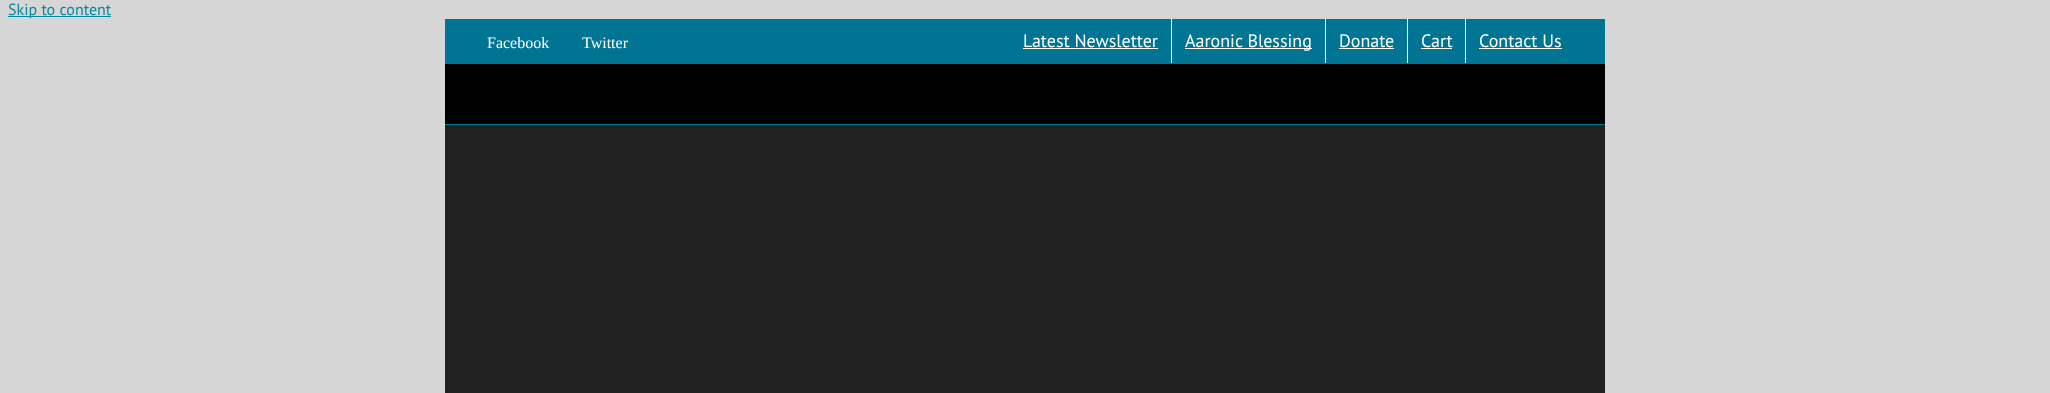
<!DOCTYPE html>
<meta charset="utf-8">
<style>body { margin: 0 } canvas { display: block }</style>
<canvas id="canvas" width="2050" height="393"></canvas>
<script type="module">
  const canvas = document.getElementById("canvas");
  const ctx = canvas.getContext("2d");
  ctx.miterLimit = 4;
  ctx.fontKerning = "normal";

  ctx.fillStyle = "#d7d6d6";
  ctx.fillRect(0, 0, 2050, 393);
  ctx.fillStyle = "#008ba0";
  ctx.fillRect(8, 16, 103, 1);
  ctx.font = "16px PT Sans";
  ctx.fillText("Skip to content", 8, 15);
  ctx.fillStyle = "#017493";
  ctx.fillRect(445, 19, 1160, 45);
  ctx.font = "16px Liberation Serif";
  ctx.fillStyle = "#ffffff";
  ctx.fillText("Facebook", 487, 48);
  ctx.fillText("Twitter", 582, 48);
  ctx.font = "18px PT Sans";
  ctx.fillText("Latest Newsletter", 1023, 47);
  ctx.fillRect(1023, 48, 135, 1);
  ctx.fillRect(1171, 19, 1, 44);
  ctx.fillRect(1185, 48, 127, 1);
  ctx.fillText("Aaronic Blessing", 1185, 47);
  ctx.fillRect(1325, 19, 1, 44);
  ctx.fillText("Donate", 1339, 47);
  ctx.fillRect(1339, 48, 55, 1);
  ctx.fillRect(1407, 19, 1, 44);
  ctx.fillText("Cart", 1421, 47);
  ctx.fillRect(1421, 48, 31, 1);
  ctx.fillRect(1465, 19, 1, 44);
  ctx.fillText("Contact Us", 1479, 47);
  ctx.fillRect(1479, 48, 83, 1);
  ctx.fillStyle = "#000000";
  ctx.fillRect(445, 64, 1160, 60);
  ctx.fillStyle = "#017493";
  ctx.fillRect(445, 124, 1160, 1);
  ctx.fillStyle = "#212121";
  ctx.fillRect(445, 125, 1160, 268);
</script>
